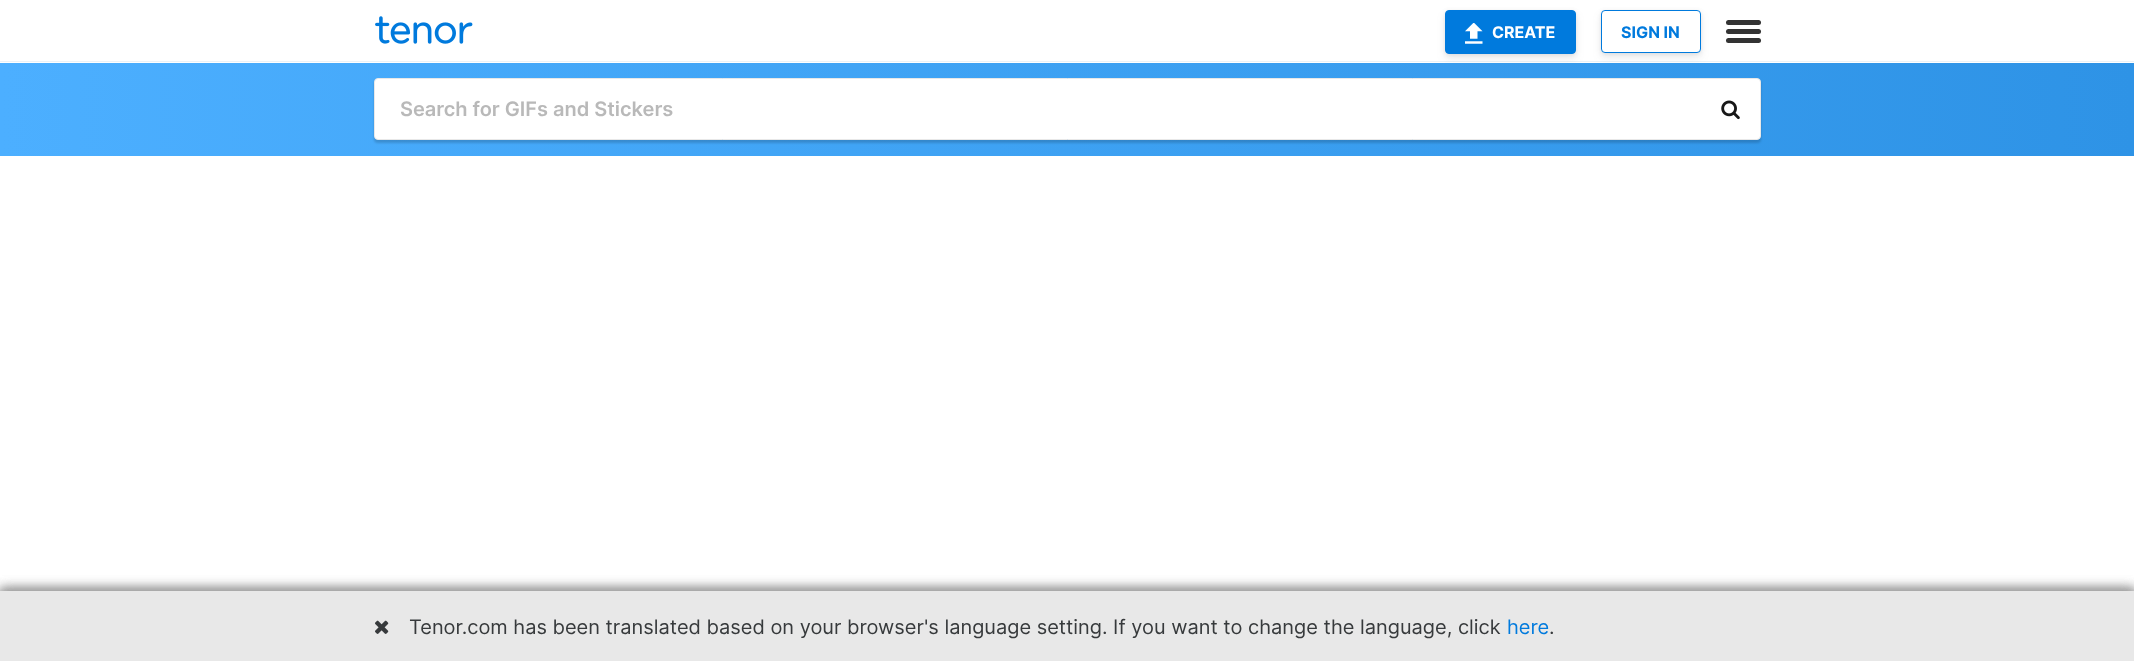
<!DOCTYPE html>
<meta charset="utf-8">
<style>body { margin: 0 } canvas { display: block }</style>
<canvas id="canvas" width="2134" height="661"></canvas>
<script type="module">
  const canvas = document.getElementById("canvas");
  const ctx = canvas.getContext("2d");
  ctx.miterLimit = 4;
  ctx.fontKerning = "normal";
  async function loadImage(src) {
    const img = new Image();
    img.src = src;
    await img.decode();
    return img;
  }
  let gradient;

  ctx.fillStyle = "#ffffff";
  ctx.fillRect(0, 0, 2134, 661);
  ctx.fillStyle = "#ebf2f7";
  ctx.fillRect(0, 61, 2134, 1);
  ctx.drawImage(await loadImage("img1.png"), 375, 16, 98, 28);
  ctx.fillStyle = "rgba(83, 83, 92, 0.11)";
  ctx.filter = "blur(4px)";
  ctx.beginPath();
  ctx.roundRect(1445, 15, 131, 44, 4);
  ctx.fill();
  ctx.filter = "none";
  ctx.fillStyle = "rgba(0, 0, 0, 0.08)";
  ctx.filter = "blur(2px)";
  ctx.beginPath();
  ctx.roundRect(1445, 11, 131, 44, 4);
  ctx.fill();
  ctx.filter = "none";
  ctx.fillStyle = "#007add";
  ctx.beginPath();
  ctx.roundRect(1445.5, 10.5, 130, 43, 3.5);
  ctx.fill();
  ctx.strokeStyle = "#007add";
  ctx.stroke();
  ctx.drawImage(await loadImage("img2.png"), 1465, 23, 18, 21);
  ctx.font = "bold 16px Inter";
  ctx.fillStyle = "#ffffff";
  ctx.fillText("CREATE", 1492, 38);
  ctx.fillStyle = "rgba(83, 83, 92, 0.11)";
  ctx.filter = "blur(4px)";
  ctx.beginPath();
  ctx.roundRect(1601, 15, 100, 43, 4);
  ctx.fill();
  ctx.filter = "none";
  ctx.fillStyle = "rgba(0, 0, 0, 0.08)";
  ctx.filter = "blur(2px)";
  ctx.beginPath();
  ctx.roundRect(1601, 11, 100, 43, 4);
  ctx.fill();
  ctx.filter = "none";
  ctx.fillStyle = "#ffffff";
  ctx.beginPath();
  ctx.roundRect(1601.5, 10.5, 99, 42, 3.5);
  ctx.fill();
  ctx.stroke();
  ctx.fillStyle = "#007add";
  ctx.fillText("SIGN IN", 1621, 38);
  ctx.fillStyle = "#333333";
  ctx.beginPath();
  ctx.roundRect(1726, 29, 35, 5, 2.5);
  ctx.fill();
  ctx.beginPath();
  ctx.roundRect(1726, 20, 35, 5, 2.5);
  ctx.fill();
  ctx.beginPath();
  ctx.roundRect(1726, 38, 35, 5, 2.5);
  ctx.fill();
  gradient = ctx.createLinearGradient(0, 109, 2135, 109);
  gradient.addColorStop(0, "#4cafff");
  gradient.addColorStop(1, "#2e93e6");
  ctx.fillStyle = gradient;
  ctx.fillRect(0, 63, 2134, 93);
  ctx.fillStyle = "rgba(0, 0, 0, 0.16)";
  ctx.filter = "blur(1px)";
  ctx.beginPath();
  ctx.roundRect(374, 80, 1387, 63, 4);
  ctx.fill();
  ctx.filter = "none";
  ctx.fillStyle = "#ffffff";
  ctx.beginPath();
  ctx.roundRect(374.5, 78.5, 1386, 61, 3.5);
  ctx.fill();
  ctx.strokeStyle = "#e8e8e8";
  ctx.stroke();
  ctx.font = "600 20px Inter";
  ctx.fillStyle = "#b9b9b9";
  ctx.fillText("Search for GIFs and Stickers", 400, 116);
  ctx.drawImage(await loadImage("img3.png"), 1721, 100, 19, 20);
  ctx.fillStyle = "#999999";
  ctx.filter = "blur(6px)";
  ctx.beginPath();
  ctx.rect(0, 589, 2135, 70);
  ctx.fill();
  ctx.filter = "none";
  ctx.filter = "blur(6px)";
  ctx.beginPath();
  ctx.rect(0, 589, 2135, 70);
  ctx.fill();
  ctx.filter = "none";
  ctx.fillStyle = "#e8e8e8";
  ctx.fillRect(0, 591, 2134, 70);
  ctx.drawImage(await loadImage("img4.png"), 375, 620, 14, 14);
  ctx.font = "20px Inter";
  ctx.fillStyle = "#373a3c";
  ctx.fillText("Tenor.com has been translated based on your browser's language setting. If you want to change the language, click", 409, 634);
  ctx.fillStyle = "#007add";
  ctx.fillText("here", 1507, 634);
  ctx.fillStyle = "#373a3c";
  ctx.fillText(".", 1549, 634);
</script>
